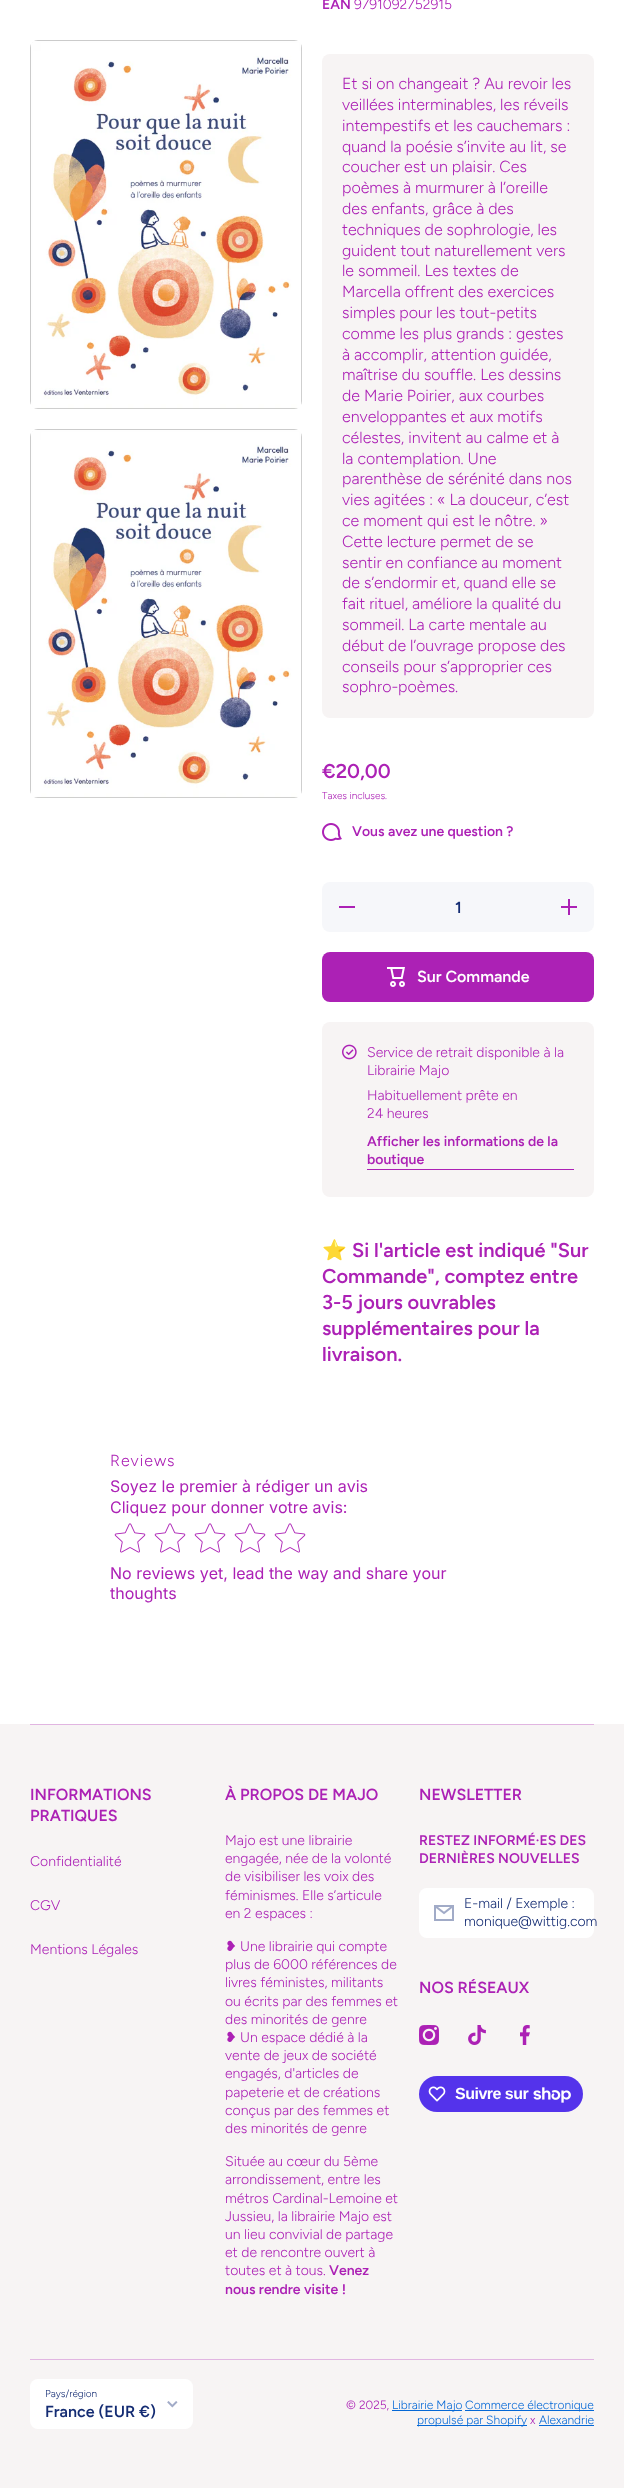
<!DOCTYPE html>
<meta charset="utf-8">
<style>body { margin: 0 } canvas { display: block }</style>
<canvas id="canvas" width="624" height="2488"></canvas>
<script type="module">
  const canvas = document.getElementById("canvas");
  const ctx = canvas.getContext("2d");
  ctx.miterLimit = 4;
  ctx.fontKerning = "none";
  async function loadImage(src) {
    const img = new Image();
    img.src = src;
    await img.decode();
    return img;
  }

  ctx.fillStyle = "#ffffff";
  ctx.fillRect(0, 0, 624, 2488);
  ctx.drawImage(await loadImage("img1.png"), 30, 40, 272, 369);
  ctx.drawImage(await loadImage("img2.png"), 30, 429, 272, 369);
  ctx.font = "600 14px Figtree";
  ctx.fillStyle = "#ac21b5";
  ctx.fillText("EAN", 322, 9);
  ctx.font = "300 14px Figtree";
  ctx.fillText("9791092752915", 354, 9);
  ctx.fillStyle = "#f7f4f4";
  ctx.beginPath();
  ctx.roundRect(322, 54, 272, 664, 8);
  ctx.fill();
  ctx.font = "300 16px Figtree";
  ctx.fillStyle = "#ac21b5";
  ctx.fillText("Et si on changeait ? Au revoir les", 342, 89);
  ctx.fillText("veillées interminables, les réveils", 342, 110);
  ctx.fillText("intempestifs et les cauchemars :", 342, 131);
  ctx.fillText("quand la poésie s’invite au lit, se", 342, 152);
  ctx.fillText("coucher est un plaisir. Ces", 342, 172);
  ctx.fillText("poèmes à murmurer à l’oreille", 342, 193);
  ctx.fillText("des enfants, grâce à des", 342, 214);
  ctx.fillText("techniques de sophrologie, les", 342, 235);
  ctx.fillText("guident tout naturellement vers", 342, 256);
  ctx.fillText("le sommeil. Les textes de", 342, 276);
  ctx.fillText("Marcella offrent des exercices", 342, 297);
  ctx.fillText("simples pour les tout-petits", 342, 318);
  ctx.fillText("comme les plus grands : gestes", 342, 339);
  ctx.fillText("à accomplir, attention guidée,", 342, 360);
  ctx.fillText("maîtrise du souffle. Les dessins", 342, 380);
  ctx.fillText("de Marie Poirier, aux courbes", 342, 401);
  ctx.fillText("enveloppantes et aux motifs", 342, 422);
  ctx.fillText("célestes, invitent au calme et à", 342, 443);
  ctx.fillText("la contemplation. Une", 342, 464);
  ctx.fillText("parenthèse de sérénité dans nos", 342, 484);
  ctx.fillText("vies agitées : « La douceur, c’est", 342, 505);
  ctx.fillText("ce moment qui est le nôtre. »", 342, 526);
  ctx.fillText("Cette lecture permet de se", 342, 547);
  ctx.fillText("sentir en confiance au moment", 342, 568);
  ctx.fillText("de s’endormir et, quand elle se", 342, 588);
  ctx.fillText("fait rituel, améliore la qualité du", 342, 609);
  ctx.fillText("sommeil. La carte mentale au", 342, 630);
  ctx.fillText("début de l’ouvrage propose des", 342, 651);
  ctx.fillText("conseils pour s’approprier ces", 342, 672);
  ctx.fillText("sophro-poèmes.", 342, 692);
  ctx.font = "600 20px Figtree";
  ctx.fillText("€20,00", 322, 778);
  ctx.font = "300 10px Figtree";
  ctx.fillText("Taxes incluses.", 322, 799);
  ctx.drawImage(await loadImage("img3.png"), 322, 823, 20, 18);
  ctx.font = "600 14px Figtree";
  ctx.fillText("Vous avez une question ?", 352, 836);
  ctx.fillStyle = "#f6f7fa";
  ctx.beginPath();
  ctx.roundRect(322, 882, 272, 50, 8);
  ctx.fill();
  ctx.fillStyle = "#ac21b5";
  ctx.fillRect(339, 906, 16, 2);
  ctx.font = "600 16px Figtree";
  ctx.fillStyle = "#142c73";
  ctx.fillText("1", 455, 913);
  ctx.drawImage(await loadImage("img4.png"), 561, 899, 16, 16);
  ctx.fillStyle = "#ac21b5";
  ctx.beginPath();
  ctx.roundRect(322, 952, 272, 50, 8);
  ctx.fill();
  ctx.drawImage(await loadImage("img5.png"), 387, 967, 18, 20);
  ctx.fillStyle = "#ffffff";
  ctx.fillText("Sur Commande", 417, 982);
  ctx.fillStyle = "#f7f4f4";
  ctx.beginPath();
  ctx.roundRect(322, 1022, 272, 175, 8);
  ctx.fill();
  ctx.drawImage(await loadImage("img6.png"), 342, 1044, 15, 16);
  ctx.font = "300 14px Figtree";
  ctx.fillStyle = "#ac21b5";
  ctx.fillText("Service de retrait disponible à la", 367, 1057);
  ctx.fillText("Librairie Majo", 367, 1075);
  ctx.fillText("Habituellement prête en", 367, 1100);
  ctx.fillText("24 heures", 367, 1118);
  ctx.font = "600 14px Figtree";
  ctx.fillText("Afficher les informations de la", 367, 1146);
  ctx.fillText("boutique", 367, 1164);
  ctx.fillRect(367, 1169, 207, 1);
  ctx.font = "20px Noto Color Emoji";
  ctx.fillText("⭐", 322, 1257);
  ctx.font = "600 20px Figtree";
  ctx.fillText("Si l'article est indiqué \"Sur", 352, 1257);
  ctx.fillText("Commande\", comptez entre", 322, 1283);
  ctx.fillText("3-5 jours ouvrables", 322, 1309);
  ctx.fillText("supplémentaires pour la", 322, 1335);
  ctx.fillText("livraison.", 322, 1361);
  ctx.letterSpacing = "1px";
  ctx.font = "300 16px Figtree";
  ctx.fillText("Reviews", 110, 1466);
  ctx.letterSpacing = "0px";
  ctx.font = "16px Inter";
  ctx.fillText("Soyez le premier à rédiger un avis", 110, 1492);
  ctx.fillText("Cliquez pour donner votre avis:", 110, 1513);
  ctx.drawImage(await loadImage("img7.png"), 114, 1523, 32, 30);
  ctx.drawImage(await loadImage("img7.png"), 154, 1523, 32, 30);
  ctx.drawImage(await loadImage("img7.png"), 194, 1523, 32, 30);
  ctx.drawImage(await loadImage("img7.png"), 234, 1523, 32, 30);
  ctx.drawImage(await loadImage("img7.png"), 274, 1523, 32, 30);
  ctx.fillText("No reviews yet, lead the way and share your", 110, 1579);
  ctx.fillText("thoughts", 110, 1599);
  ctx.fillStyle = "#f7f4f4";
  ctx.fillRect(0, 1724, 624, 764);
  ctx.fillStyle = "#e1b5e1";
  ctx.fillRect(30, 1724, 564, 1);
  ctx.font = "600 16px Figtree";
  ctx.fillStyle = "#ac21b5";
  ctx.fillText("INFORMATIONS", 30, 1800);
  ctx.fillText("PRATIQUES", 30, 1821);
  ctx.font = "300 14px Figtree";
  ctx.fillText("Confidentialité", 30, 1866);
  ctx.fillText("CGV", 30, 1910);
  ctx.fillText("Mentions Légales", 30, 1954);
  ctx.font = "600 16px Figtree";
  ctx.fillText("À PROPOS DE MAJO", 225, 1800);
  ctx.font = "300 14px Figtree";
  ctx.fillText("Majo est une librairie", 225, 1845);
  ctx.fillText("engagée, née de la volonté", 225, 1863);
  ctx.fillText("de visibiliser les voix des", 225, 1881);
  ctx.fillText("féminismes. Elle s’articule", 225, 1900);
  ctx.fillText("en 2 espaces :", 225, 1918);
  ctx.font = "14px DejaVu Sans";
  ctx.fillText("❥", 225, 1951);
  ctx.font = "300 14px Figtree";
  ctx.fillText("Une librairie qui compte", 240, 1951);
  ctx.fillText("plus de 6000 références de", 225, 1969);
  ctx.fillText("livres féministes, militants", 225, 1987);
  ctx.fillText("ou écrits par des femmes et", 225, 2006);
  ctx.fillText("des minorités de genre", 225, 2024);
  ctx.font = "14px DejaVu Sans";
  ctx.fillText("❥", 225, 2042);
  ctx.font = "300 14px Figtree";
  ctx.fillText("Un espace dédié à la", 240, 2042);
  ctx.fillText("vente de jeux de société", 225, 2060);
  ctx.fillText("engagés, d'articles de", 225, 2078);
  ctx.fillText("papeterie et de créations", 225, 2097);
  ctx.fillText("conçus par des femmes et", 225, 2115);
  ctx.fillText("des minorités de genre", 225, 2133);
  ctx.fillText("Située au cœur du 5ème", 225, 2166);
  ctx.fillText("arrondissement, entre les", 225, 2184);
  ctx.fillText("métros Cardinal-Lemoine et", 225, 2203);
  ctx.fillText("Jussieu, la librairie Majo est", 225, 2221);
  ctx.fillText("un lieu convivial de partage", 225, 2239);
  ctx.fillText("et de rencontre ouvert à", 225, 2257);
  ctx.fillText("toutes et à tous.", 225, 2275);
  ctx.font = "600 14px Figtree";
  ctx.fillText("Venez", 329, 2275);
  ctx.fillText("nous rendre visite !", 225, 2294);
  ctx.font = "600 16px Figtree";
  ctx.fillText("NEWSLETTER", 419, 1800);
  ctx.font = "600 14px Figtree";
  ctx.fillText("RESTEZ INFORMÉ·ES DES", 419, 1845);
  ctx.fillText("DERNIÈRES NOUVELLES", 419, 1863);
  ctx.fillStyle = "#ffffff";
  ctx.beginPath();
  ctx.roundRect(419, 1888, 175, 50, 8);
  ctx.fill();
  ctx.drawImage(await loadImage("img8.png"), 434, 1905, 20, 16);
  ctx.font = "300 14px Figtree";
  ctx.fillStyle = "#142c73";
  ctx.fillText("E-mail / Exemple :", 464, 1908);
  ctx.fillText("monique@wittig.com", 464, 1926);
  ctx.font = "600 16px Figtree";
  ctx.fillStyle = "#ac21b5";
  ctx.fillText("NOS RÉSEAUX", 419, 1993);
  ctx.drawImage(await loadImage("img9.png"), 419, 2025, 20, 20);
  ctx.drawImage(await loadImage("img10.png"), 468, 2025, 18, 20);
  ctx.drawImage(await loadImage("img11.png"), 520, 2025, 10, 20);
  ctx.fillStyle = "#5433eb";
  ctx.beginPath();
  ctx.roundRect(419, 2076, 164, 36, 18);
  ctx.fill();
  ctx.drawImage(await loadImage("img12.png"), 428, 2086, 18, 16);
  ctx.letterSpacing = "-0.5px";
  ctx.font = "bold 16px Liberation Sans";
  ctx.fillStyle = "#ffffff";
  ctx.fillText("Suivre sur", 455, 2099);
  ctx.drawImage(await loadImage("img13.png"), 533, 2087, 38, 16);
  ctx.fillStyle = "#e1b5e1";
  ctx.fillRect(30, 2359, 564, 1);
  ctx.fillStyle = "#ffffff";
  ctx.beginPath();
  ctx.roundRect(30, 2379, 163, 50, 8);
  ctx.fill();
  ctx.letterSpacing = "0px";
  ctx.font = "300 10px Figtree";
  ctx.fillStyle = "#142c73";
  ctx.fillText("Pays/région", 45, 2397);
  ctx.font = "600 16px Figtree";
  ctx.fillText("France (EUR €)", 45, 2417);
  ctx.drawImage(await loadImage("img14.png"), 167, 2401, 11, 7);
  ctx.font = "300 12px Figtree";
  ctx.fillStyle = "#ac21b5";
  ctx.fillText("© 2025,", 346, 2409);
  ctx.fillStyle = "#0568d6";
  ctx.fillRect(392, 2410, 70, 1);
  ctx.fillText("Librairie Majo", 392, 2409);
  ctx.fillRect(465, 2410, 129, 1);
  ctx.fillText("Commerce électronique", 465, 2409);
  ctx.fillRect(417, 2425, 110, 1);
  ctx.fillText("propulsé par Shopify", 417, 2424);
  ctx.fillStyle = "#ac21b5";
  ctx.fillText("x", 530, 2424);
  ctx.fillStyle = "#0568d6";
  ctx.fillText("Alexandrie", 539, 2424);
  ctx.fillRect(539, 2425, 55, 1);
</script>
